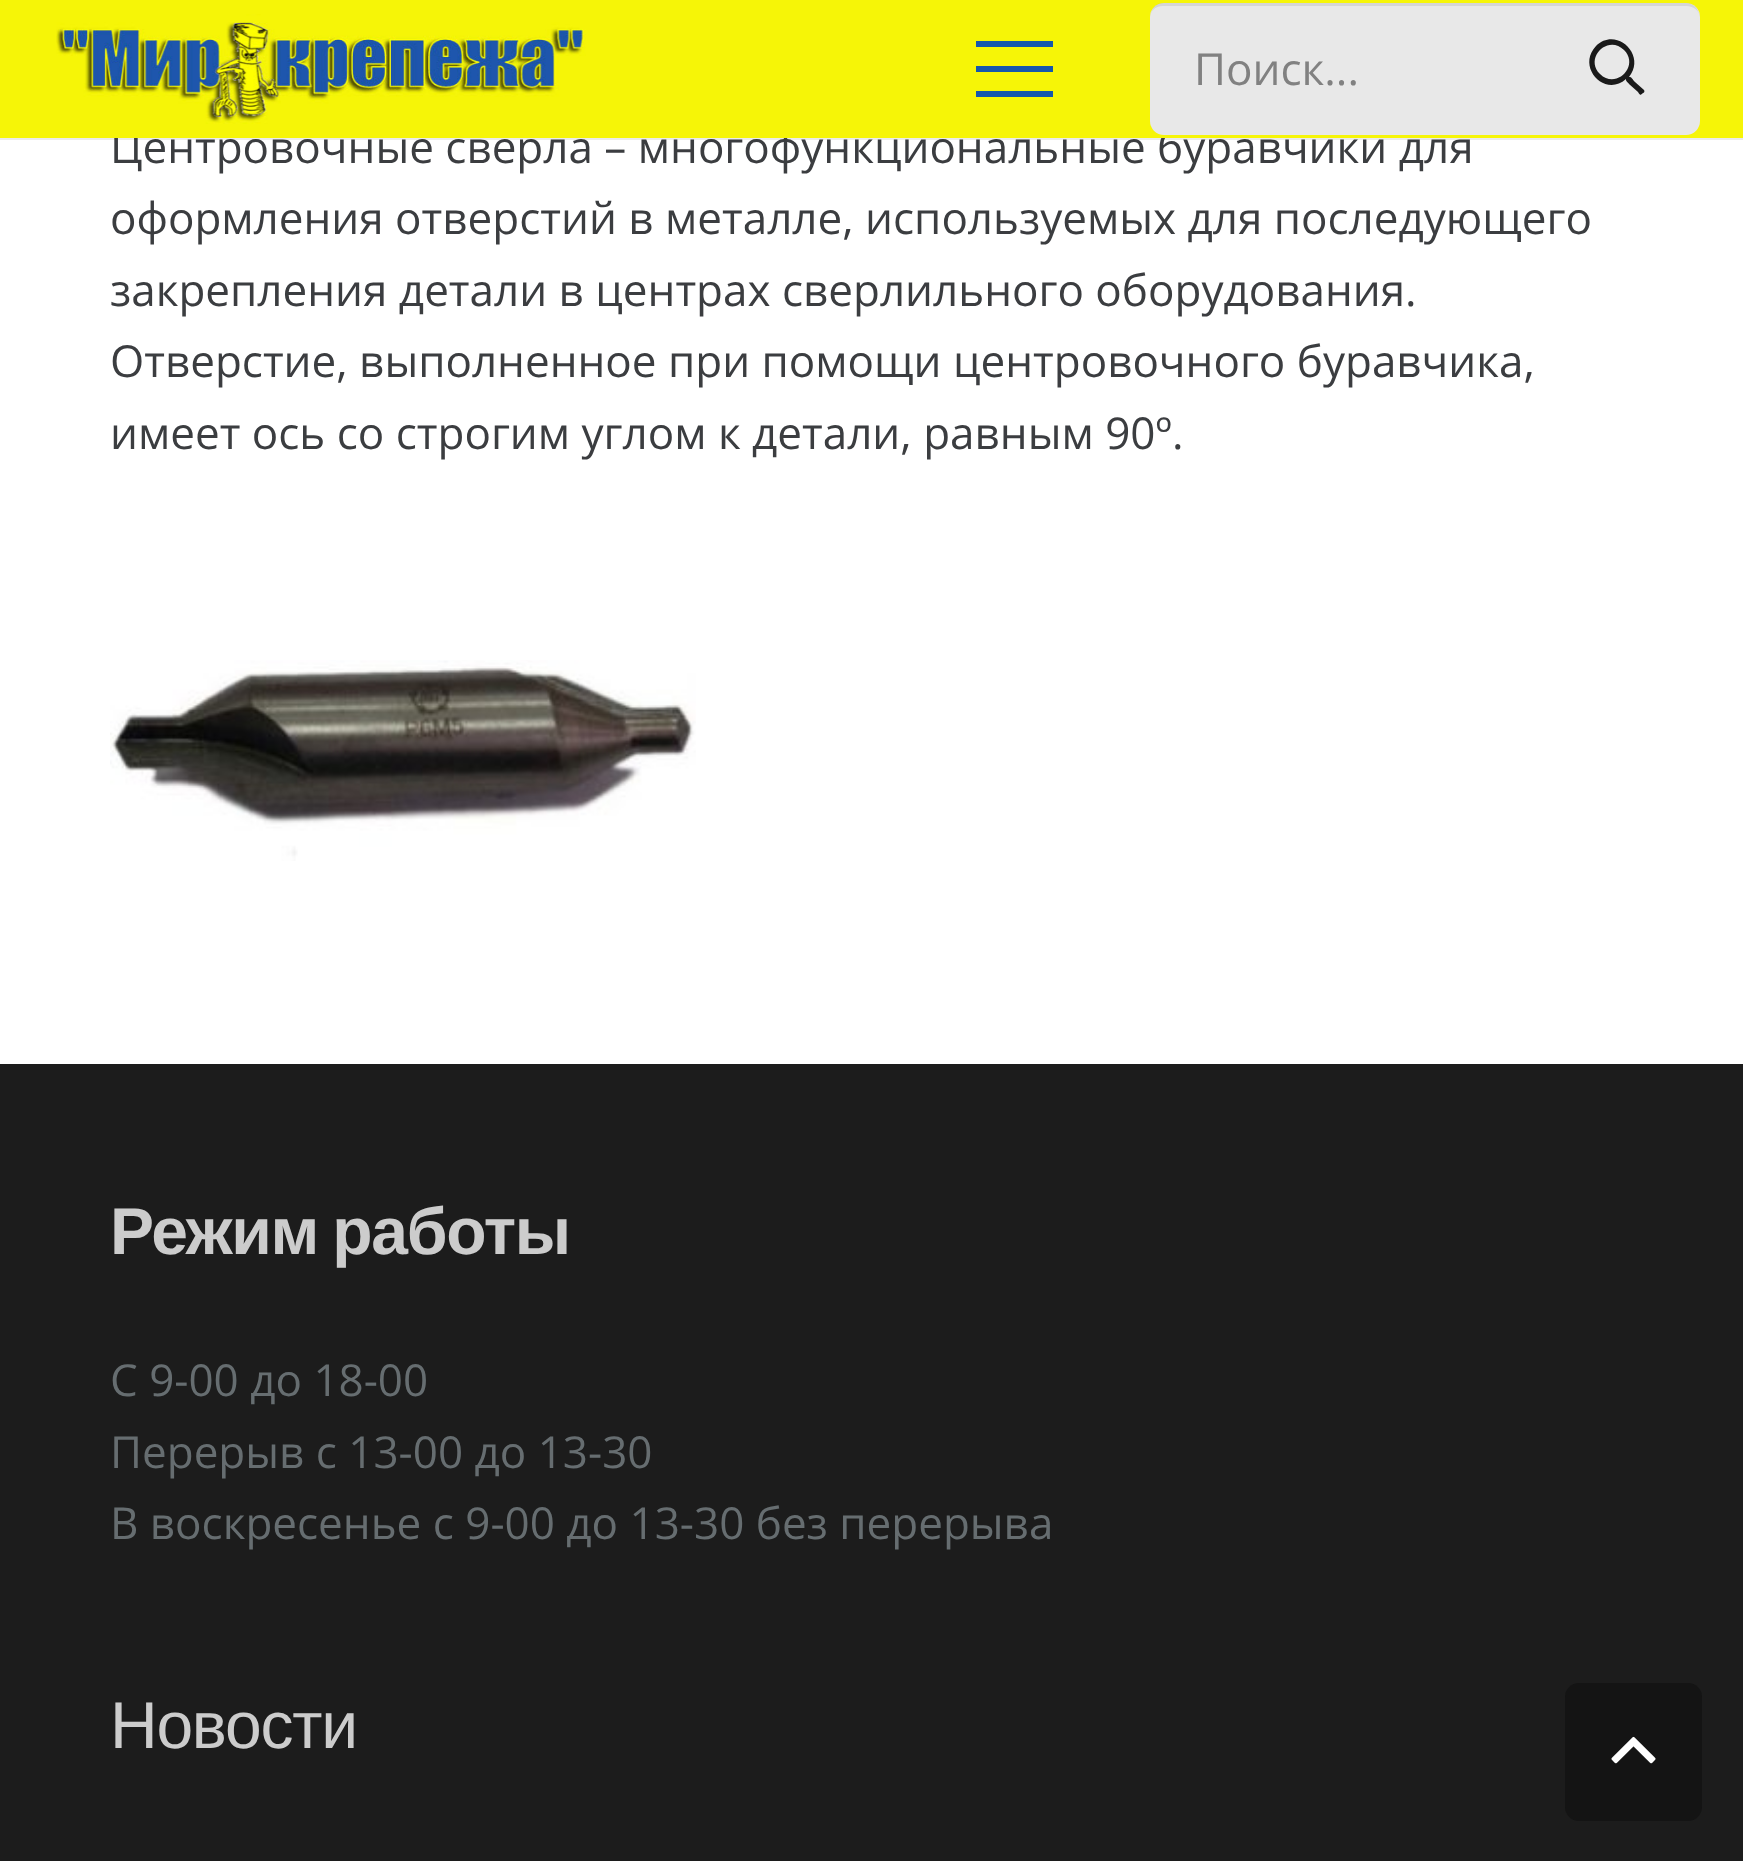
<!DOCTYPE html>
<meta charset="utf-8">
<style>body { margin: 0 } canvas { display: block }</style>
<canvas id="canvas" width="1743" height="1861"></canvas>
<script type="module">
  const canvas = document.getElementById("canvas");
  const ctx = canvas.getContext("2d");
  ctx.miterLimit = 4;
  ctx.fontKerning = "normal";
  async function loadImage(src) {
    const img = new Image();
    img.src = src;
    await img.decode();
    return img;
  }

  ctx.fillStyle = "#ffffff";
  ctx.fillRect(0, 0, 1743, 1861);
  ctx.fillStyle = "rgba(0, 0, 0, 0.08)";
  ctx.beginPath();
  ctx.moveTo(0, 138);
  ctx.lineTo(0, 140);
  ctx.lineTo(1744, 140);
  ctx.lineTo(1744, 3);
  ctx.lineTo(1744, 138);
  ctx.closePath();
  ctx.fill();
  ctx.font = "44px Open Sans";
  ctx.fillStyle = "#3b3d40";
  ctx.fillText("Центровочные сверла – многофункциональные буравчики для", 110, 163);
  ctx.fillStyle = "#f6f507";
  ctx.fillRect(0, 0, 1743, 138);
  ctx.drawImage(await loadImage("img1.png"), 56, 14, 530, 110);
  ctx.fillStyle = "#1557ad";
  ctx.fillRect(976, 66, 77, 6);
  ctx.fillRect(976, 41, 77, 6);
  ctx.fillRect(976, 91, 77, 6);
  ctx.fillStyle = "#e8e8e8";
  ctx.beginPath();
  ctx.roundRect(1150, 3, 550, 132, 14);
  ctx.fill();
  ctx.fillStyle = "rgba(0, 0, 0, 0.08)";
  ctx.beginPath();
  ctx.moveTo(1163, 6);
  ctx.lineTo(1686, 6);
  ctx.bezierCurveTo(1694, 6, 1700, 11, 1700, 19);
  ctx.bezierCurveTo(1700, 11, 1695, 3, 1686, 3);
  ctx.lineTo(1161, 3);
  ctx.bezierCurveTo(1153, 5, 1150, 12, 1150, 19);
  ctx.bezierCurveTo(1150, 11, 1155, 6, 1163, 6);
  ctx.closePath();
  ctx.fill();
  ctx.fillStyle = "#818181";
  ctx.fillText("Поиск...", 1194, 85);
  ctx.fillStyle = "#1a1a1a";
  ctx.beginPath();
  ctx.moveTo(1644, 90);
  ctx.bezierCurveTo(1645, 91, 1644, 93, 1643, 93);
  ctx.bezierCurveTo(1640, 96, 1640, 95, 1638, 92);
  ctx.lineTo(1629, 84);
  ctx.bezierCurveTo(1627, 81, 1626, 82, 1626, 79);
  ctx.bezierCurveTo(1605, 98, 1576, 67, 1596, 46);
  ctx.bezierCurveTo(1616, 26, 1647, 55, 1629, 77);
  ctx.bezierCurveTo(1632, 77, 1632, 79, 1635, 82);
  ctx.closePath();
  ctx.moveTo(1600, 74);
  ctx.bezierCurveTo(1616, 90, 1640, 66, 1624, 50);
  ctx.bezierCurveTo(1608, 34, 1584, 58, 1600, 74);
  ctx.closePath();
  ctx.fill();
  ctx.fillStyle = "#3b3d40";
  ctx.fillText("оформления отверстий в металле, используемых для последующего", 110, 234);
  ctx.fillText("закрепления детали в центрах сверлильного оборудования.", 110, 306);
  ctx.fillText("Отверстие, выполненное при помощи центровочного буравчика,", 110, 377);
  ctx.fillText("имеет ось со строгим углом к детали, равным 90º.", 110, 449);
  ctx.drawImage(await loadImage("img2.png"), 110, 660, 586, 201);
  ctx.fillStyle = "#1c1c1c";
  ctx.fillRect(0, 1064, 1743, 797);
  ctx.letterSpacing = "-1.25px";
  ctx.wordSpacing = "-3px";
  ctx.font = "bold 66px Liberation Sans";
  ctx.fillStyle = "#cccccc";
  ctx.fillText("Режим работы", 110, 1254);
  ctx.letterSpacing = "0px";
  ctx.wordSpacing = "0px";
  ctx.font = "44px Open Sans";
  ctx.fillStyle = "#666d70";
  ctx.fillText("С 9-00 до 18-00", 110, 1396);
  ctx.fillText("Перерыв с 13-00 до 13-30", 110, 1468);
  ctx.fillText("В воскресенье с 9-00 до 13-30 без перерыва", 110, 1539);
  ctx.letterSpacing = "-1.25px";
  ctx.font = "66px Liberation Sans";
  ctx.fillStyle = "#cccccc";
  ctx.fillText("Новости", 110, 1748);
  ctx.fillStyle = "#141414";
  ctx.beginPath();
  ctx.roundRect(1565, 1683, 137, 138, 14);
  ctx.fill();
  ctx.drawImage(await loadImage("img3.png"), 1611, 1736, 45, 28);
</script>
